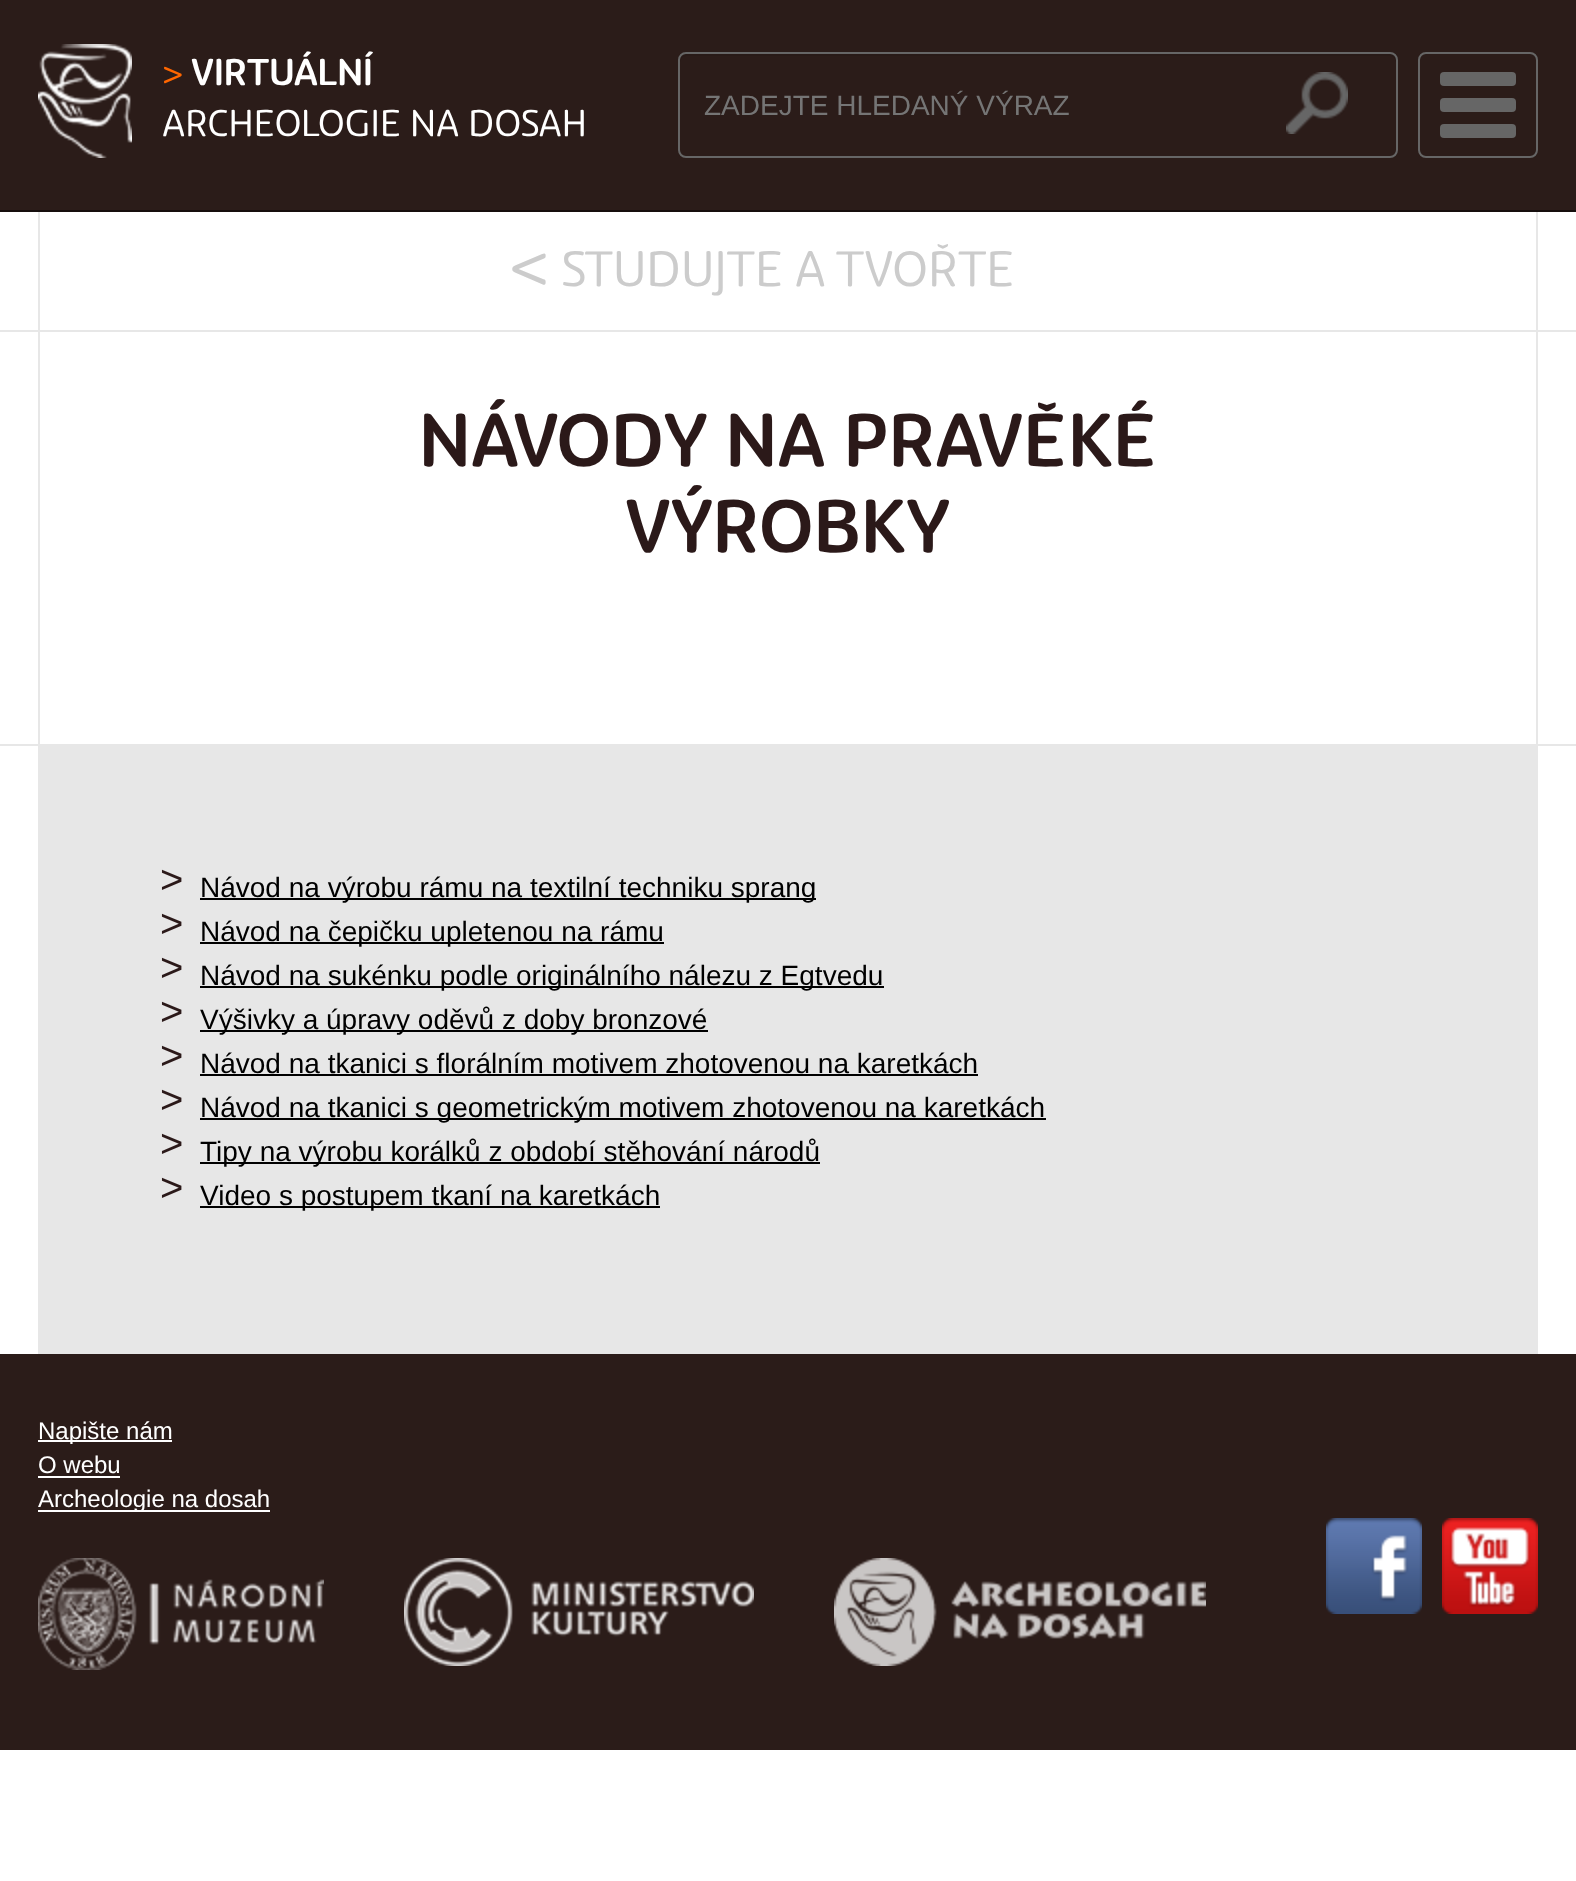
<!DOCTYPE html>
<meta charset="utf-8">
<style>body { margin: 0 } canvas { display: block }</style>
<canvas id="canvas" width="1576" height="1881"></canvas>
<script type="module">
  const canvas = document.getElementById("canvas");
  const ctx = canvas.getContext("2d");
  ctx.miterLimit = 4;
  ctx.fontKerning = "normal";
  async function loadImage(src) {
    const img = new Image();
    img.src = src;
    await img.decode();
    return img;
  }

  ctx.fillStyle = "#ffffff";
  ctx.fillRect(0, 0, 1576, 1881);
  ctx.fillStyle = "#2b1c19";
  ctx.fillRect(0, 0, 1576, 210);
  ctx.fillStyle = "#160e0d";
  ctx.fillRect(0, 210, 1576, 2);
  ctx.drawImage(await loadImage("img1.png"), 38, 44, 94, 114);
  ctx.font = "36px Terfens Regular";
  ctx.fillStyle = "#ff6600";
  ctx.fillText(">", 162, 85);
  ctx.font = "bold 36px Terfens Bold";
  ctx.fillStyle = "#ffffff";
  ctx.fillText("VIRTUÁLNÍ", 191, 85);
  ctx.font = "36px Terfens Regular";
  ctx.fillText("ARCHEOLOGIE NA DOSAH", 162, 136);
  ctx.beginPath();
  ctx.roundRect(1419, 53, 118, 104, 7);
  ctx.strokeStyle = "#666666";
  ctx.lineWidth = 2;
  ctx.stroke();
  ctx.fillStyle = "#666666";
  ctx.beginPath();
  ctx.roundRect(1440, 72, 76, 14, 4);
  ctx.fill();
  ctx.beginPath();
  ctx.roundRect(1440, 98, 76, 14, 4);
  ctx.fill();
  ctx.beginPath();
  ctx.roundRect(1440, 124, 76, 14, 4);
  ctx.fill();
  ctx.fillStyle = "#281a17";
  ctx.beginPath();
  ctx.moveTo(686, 56);
  ctx.lineTo(1390, 56);
  ctx.bezierCurveTo(1393, 56, 1396, 59, 1396, 62);
  ctx.lineTo(1396, 60);
  ctx.bezierCurveTo(1396, 57, 1393, 54, 1390, 54);
  ctx.lineTo(686, 54);
  ctx.bezierCurveTo(683, 54, 680, 57, 680, 60);
  ctx.lineTo(680, 62);
  ctx.bezierCurveTo(680, 59, 683, 56, 686, 56);
  ctx.closePath();
  ctx.fill();
  ctx.beginPath();
  ctx.roundRect(679, 53, 718, 104, 7);
  ctx.stroke();
  ctx.font = "28px Liberation Sans";
  ctx.fillStyle = "#757575";
  ctx.fillText("ZADEJTE HLEDANÝ VÝRAZ", 704, 115);
  ctx.drawImage(await loadImage("img2.png"), 1286, 72, 62, 62);
  ctx.fillStyle = "#e7e7e7";
  ctx.fillRect(0, 330, 1576, 2);
  ctx.fillRect(1536, 212, 2, 532);
  ctx.fillRect(38, 212, 2, 532);
  ctx.font = "68px Terfens Regular";
  ctx.fillStyle = "#cccccc";
  ctx.fillText("<", 512, 288);
  ctx.font = "48px Terfens Regular";
  ctx.fillText("STUDUJTE A TVOŘTE", 562, 286);
  ctx.font = "bold 72px Terfens Bold";
  ctx.fillStyle = "#2b1919";
  ctx.fillText("NÁVODY NA PRAVĚKÉ", 419, 466);
  ctx.fillText("VÝROBKY", 625, 552);
  ctx.fillStyle = "#e7e7e7";
  ctx.fillRect(0, 744, 1576, 2);
  ctx.fillRect(38, 746, 1500, 608);
  ctx.font = "40px Liberation Sans";
  ctx.fillStyle = "#2b1919";
  ctx.fillText(">", 160, 893);
  ctx.fillStyle = "#000000";
  ctx.fillRect(200, 898, 616, 2);
  ctx.font = "28px Liberation Sans";
  ctx.fillText("Návod na výrobu rámu na textilní techniku sprang", 200, 897);
  ctx.font = "40px Liberation Sans";
  ctx.fillStyle = "#2b1919";
  ctx.fillText(">", 160, 937);
  ctx.fillStyle = "#000000";
  ctx.fillRect(200, 942, 464, 2);
  ctx.font = "28px Liberation Sans";
  ctx.fillText("Návod na čepičku upletenou na rámu", 200, 941);
  ctx.font = "40px Liberation Sans";
  ctx.fillStyle = "#2b1919";
  ctx.fillText(">", 160, 981);
  ctx.fillStyle = "#000000";
  ctx.fillRect(200, 986, 684, 2);
  ctx.font = "28px Liberation Sans";
  ctx.fillText("Návod na sukénku podle originálního nálezu z Egtvedu", 200, 985);
  ctx.font = "40px Liberation Sans";
  ctx.fillStyle = "#2b1919";
  ctx.fillText(">", 160, 1025);
  ctx.fillStyle = "#000000";
  ctx.fillRect(200, 1030, 508, 2);
  ctx.font = "28px Liberation Sans";
  ctx.fillText("Výšivky a úpravy oděvů z doby bronzové", 200, 1029);
  ctx.font = "40px Liberation Sans";
  ctx.fillStyle = "#2b1919";
  ctx.fillText(">", 160, 1069);
  ctx.font = "28px Liberation Sans";
  ctx.fillStyle = "#000000";
  ctx.fillText("Návod na tkanici s florálním motivem zhotovenou na karetkách", 200, 1073);
  ctx.fillRect(200, 1074, 778, 2);
  ctx.font = "40px Liberation Sans";
  ctx.fillStyle = "#2b1919";
  ctx.fillText(">", 160, 1113);
  ctx.fillStyle = "#000000";
  ctx.fillRect(200, 1118, 846, 2);
  ctx.font = "28px Liberation Sans";
  ctx.fillText("Návod na tkanici s geometrickým motivem zhotovenou na karetkách", 200, 1117);
  ctx.font = "40px Liberation Sans";
  ctx.fillStyle = "#2b1919";
  ctx.fillText(">", 160, 1157);
  ctx.fillStyle = "#000000";
  ctx.fillRect(200, 1162, 620, 2);
  ctx.font = "28px Liberation Sans";
  ctx.fillText("Tipy na výrobu korálků z období stěhování národů", 200, 1161);
  ctx.font = "40px Liberation Sans";
  ctx.fillStyle = "#2b1919";
  ctx.fillText(">", 160, 1201);
  ctx.fillStyle = "#000000";
  ctx.fillRect(200, 1206, 460, 2);
  ctx.font = "28px Liberation Sans";
  ctx.fillText("Video s postupem tkaní na karetkách", 200, 1205);
  ctx.fillStyle = "#2b1c19";
  ctx.fillRect(0, 1354, 1576, 396);
  ctx.fillStyle = "#ffffff";
  ctx.fillRect(38, 1440, 134, 2);
  ctx.font = "24px Liberation Sans";
  ctx.fillText("Napište nám", 38, 1439);
  ctx.fillText("O webu", 38, 1473);
  ctx.fillRect(38, 1476, 82, 2);
  ctx.fillRect(38, 1510, 232, 2);
  ctx.fillText("Archeologie na dosah", 38, 1507);
  ctx.drawImage(await loadImage("img3.png"), 38, 1558, 286, 112);
  ctx.drawImage(await loadImage("img4.png"), 404, 1558, 350, 108);
  ctx.drawImage(await loadImage("img5.png"), 834, 1558, 372, 108);
  ctx.drawImage(await loadImage("img6.png"), 1326, 1518, 96, 96);
  ctx.drawImage(await loadImage("img7.png"), 1442, 1518, 96, 96);
</script>
